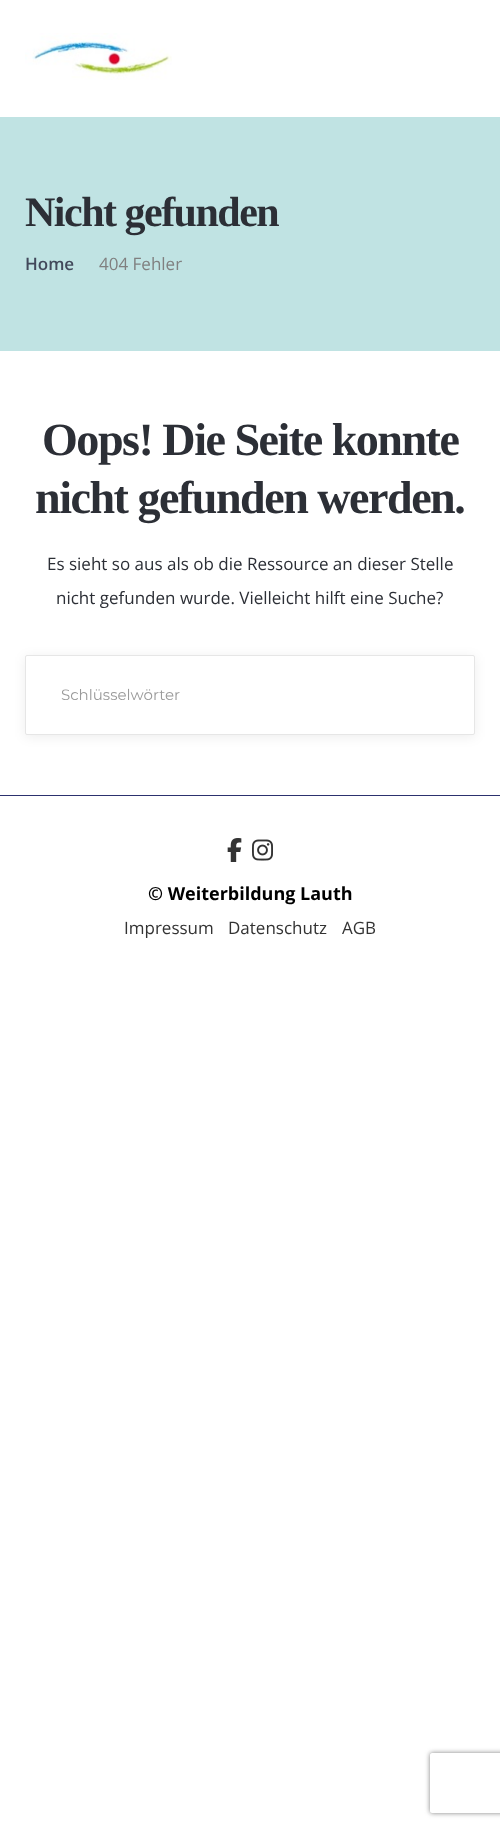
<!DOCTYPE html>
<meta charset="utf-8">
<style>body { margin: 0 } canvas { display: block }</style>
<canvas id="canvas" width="500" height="1827"></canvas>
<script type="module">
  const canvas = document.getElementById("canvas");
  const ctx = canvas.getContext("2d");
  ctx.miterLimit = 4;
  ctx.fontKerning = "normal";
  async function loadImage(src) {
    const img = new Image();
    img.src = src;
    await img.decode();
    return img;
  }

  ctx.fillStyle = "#ffffff";
  ctx.fillRect(0, 0, 500, 1827);
  ctx.drawImage(await loadImage("img1.png"), 25, 33, 147, 47);
  ctx.fillStyle = "#c0e3e3";
  ctx.fillRect(0, 117, 500, 234);
  ctx.letterSpacing = "-1.5px";
  ctx.font = "bold 42px Liberation Serif";
  ctx.fillStyle = "#2c2f36";
  ctx.fillText("Nicht gefunden", 25, 226);
  ctx.letterSpacing = "0px";
  ctx.font = "600 17px Open Sans";
  ctx.fillStyle = "#42495b";
  ctx.fillText("Home", 25, 270);
  ctx.font = "17px Open Sans";
  ctx.fillStyle = "#808080";
  ctx.fillText("404 Fehler", 99, 270);
  ctx.letterSpacing = "-1.5px";
  ctx.font = "bold 46.1px Liberation Serif";
  ctx.fillStyle = "#2c2f36";
  ctx.fillText("Oops! Die Seite konnte", 42, 455);
  ctx.fillText("nicht gefunden werden.", 35, 513);
  ctx.letterSpacing = "0px";
  ctx.font = "17px Open Sans";
  ctx.fillText("Es sieht so aus als ob die Ressource an dieser Stelle", 47, 570);
  ctx.fillText("nicht gefunden wurde. Vielleicht hilft eine Suche?", 56, 604);
  ctx.save();
  ctx.beginPath();
  ctx.moveTo(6, 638);
  ctx.lineTo(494, 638);
  ctx.lineTo(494, 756);
  ctx.lineTo(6, 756);
  ctx.closePath();
  ctx.moveTo(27, 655);
  ctx.lineTo(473, 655);
  ctx.bezierCurveTo(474, 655, 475, 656, 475, 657);
  ctx.lineTo(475, 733);
  ctx.bezierCurveTo(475, 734, 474, 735, 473, 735);
  ctx.lineTo(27, 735);
  ctx.bezierCurveTo(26, 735, 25, 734, 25, 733);
  ctx.lineTo(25, 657);
  ctx.bezierCurveTo(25, 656, 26, 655, 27, 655);
  ctx.closePath();
  ctx.clip("evenodd");
  ctx.fillStyle = "rgba(0, 0, 0, 0.07)";
  ctx.filter = "blur(6px)";
  ctx.beginPath();
  ctx.roundRect(25, 657, 450, 80, 2);
  ctx.fill();
  ctx.filter = "none";
  ctx.restore();
  ctx.beginPath();
  ctx.roundRect(25.5, 655.5, 449, 79, 1.5);
  ctx.strokeStyle = "#e6e6e6";
  ctx.stroke();
  ctx.font = "15px Montserrat";
  ctx.fillStyle = "#9a9a9a";
  ctx.fillText("Schlüsselwörter", 61, 700);
  ctx.fillStyle = "#2c316e";
  ctx.fillRect(0, 795, 500, 1);
  ctx.drawImage(await loadImage("img2.png"), 227, 838, 15, 24);
  ctx.drawImage(await loadImage("img3.png"), 252, 839, 21, 22);
  ctx.font = "bold 18px Open Sans";
  ctx.fillStyle = "#000000";
  ctx.fillText("© Weiterbildung Lauth", 148, 900);
  ctx.font = "17px Open Sans";
  ctx.fillStyle = "#333333";
  ctx.fillText("Impressum", 124, 934);
  ctx.fillText("Datenschutz", 228, 934);
  ctx.fillText("AGB", 342, 934);
  ctx.save();
  ctx.beginPath();
  ctx.moveTo(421, 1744);
  ctx.lineTo(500, 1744);
  ctx.lineTo(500, 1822);
  ctx.lineTo(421, 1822);
  ctx.closePath();
  ctx.moveTo(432, 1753);
  ctx.lineTo(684, 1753);
  ctx.bezierCurveTo(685, 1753, 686, 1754, 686, 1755);
  ctx.lineTo(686, 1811);
  ctx.bezierCurveTo(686, 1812, 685, 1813, 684, 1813);
  ctx.lineTo(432, 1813);
  ctx.bezierCurveTo(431, 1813, 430, 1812, 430, 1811);
  ctx.lineTo(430, 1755);
  ctx.bezierCurveTo(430, 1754, 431, 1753, 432, 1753);
  ctx.closePath();
  ctx.clip("evenodd");
  ctx.fillStyle = "#808080";
  ctx.filter = "blur(2.5px)";
  ctx.beginPath();
  ctx.roundRect(430, 1753, 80, 60, 2);
  ctx.fill();
  ctx.filter = "none";
  ctx.restore();
</script>
